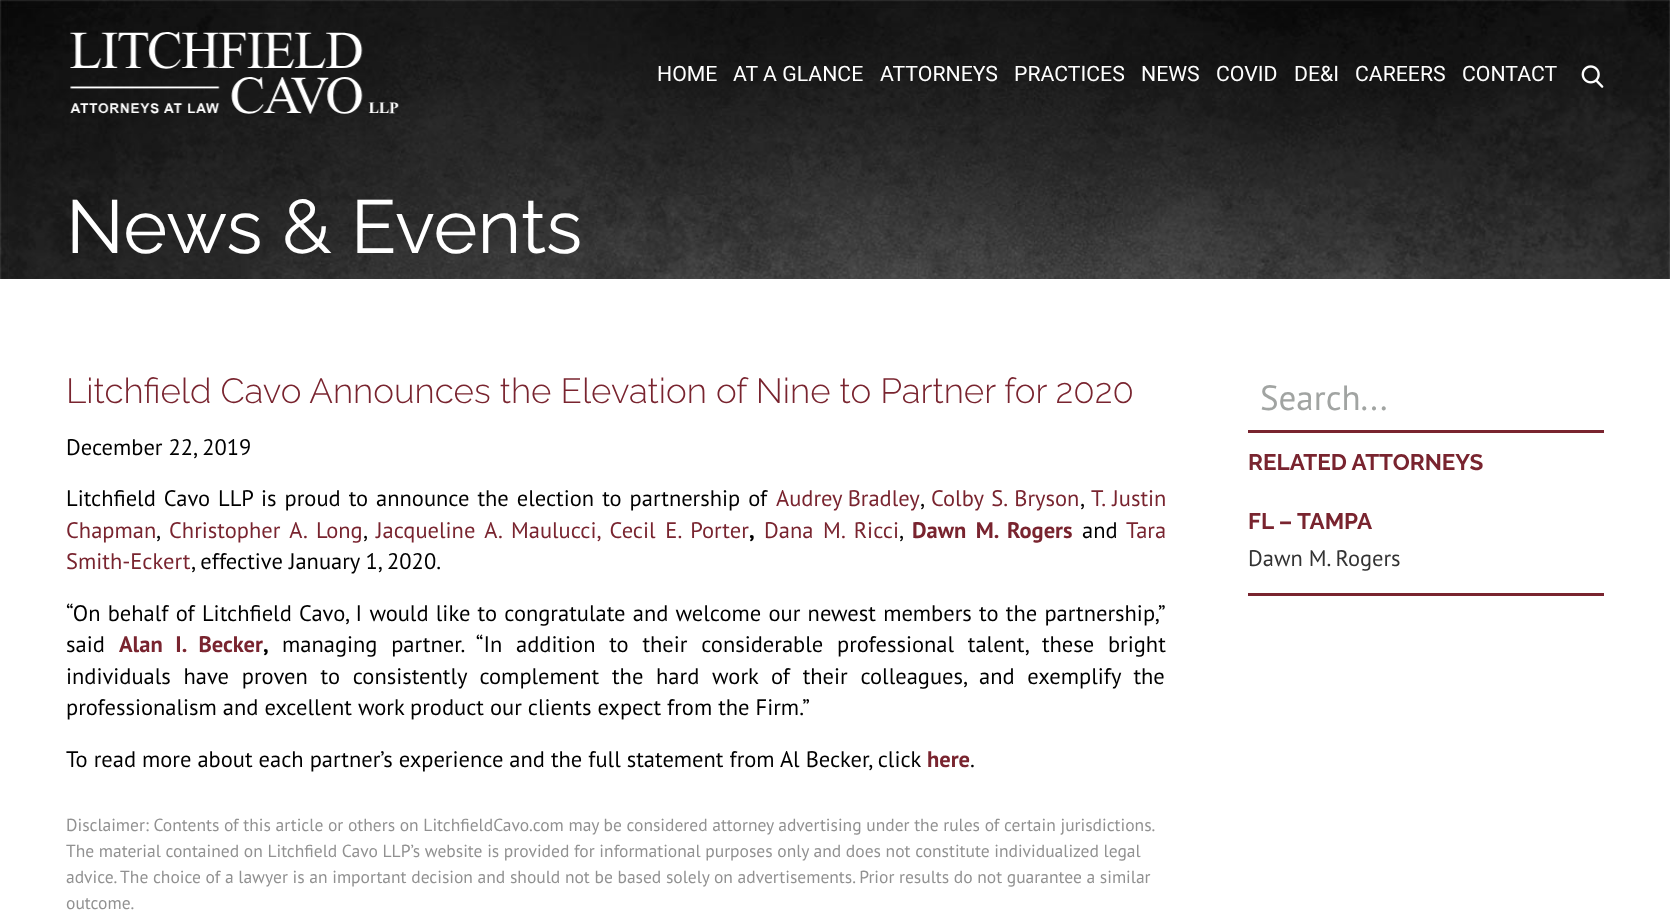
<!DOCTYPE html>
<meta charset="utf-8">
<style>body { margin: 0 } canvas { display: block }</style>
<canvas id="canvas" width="1670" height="911"></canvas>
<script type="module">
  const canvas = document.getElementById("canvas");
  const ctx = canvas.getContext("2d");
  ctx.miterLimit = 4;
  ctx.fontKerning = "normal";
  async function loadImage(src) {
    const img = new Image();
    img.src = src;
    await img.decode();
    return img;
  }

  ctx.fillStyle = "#ffffff";
  ctx.fillRect(0, 0, 1670, 911);
  ctx.drawImage(await loadImage("img1.png"), 0, 0, 1670, 279);
  ctx.drawImage(await loadImage("img2.png"), 70, 32, 329, 82);
  ctx.font = "21.25px Roboto";
  ctx.fillText("HOME", 657, 81);
  ctx.fillText("AT A GLANCE", 733, 81);
  ctx.fillText("ATTORNEYS", 880, 81);
  ctx.fillText("PRACTICES", 1014, 81);
  ctx.fillText("NEWS", 1141, 81);
  ctx.fillText("COVID", 1216, 81);
  ctx.fillText("DE&I", 1294, 81);
  ctx.fillText("CAREERS", 1355, 81);
  ctx.fillText("CONTACT", 1462, 81);
  ctx.drawImage(await loadImage("img3.png"), 1581, 65, 23, 23);
  ctx.font = "75px Raleway";
  ctx.fillText("News & Events", 66, 253);
  ctx.font = "300 35px Raleway";
  ctx.fillStyle = "#79242f";
  ctx.fillText("Litchfield Cavo Announces the Elevation of Nine to Partner for 2020", 66, 403);
  ctx.font = "22.5px PT Sans";
  ctx.fillStyle = "#000000";
  ctx.fillText("December 22, 2019", 66, 455);
  ctx.wordSpacing = "2px";
  ctx.fillText("Litchfield Cavo LLP is proud to announce the election to partnership of", 66, 506);
  ctx.wordSpacing = "0px";
  ctx.fillStyle = "#79242f";
  ctx.fillText("Audrey Bradley", 776, 506);
  ctx.fillStyle = "#000000";
  ctx.fillText(",", 920, 506);
  ctx.wordSpacing = "2px";
  ctx.fillStyle = "#79242f";
  ctx.fillText("Colby S. Bryson", 931, 506);
  ctx.wordSpacing = "0px";
  ctx.fillStyle = "#000000";
  ctx.fillText(",", 1080, 506);
  ctx.wordSpacing = "2px";
  ctx.fillStyle = "#79242f";
  ctx.fillText("T. Justin", 1091, 506);
  ctx.wordSpacing = "0px";
  ctx.fillText("Chapman", 66, 538);
  ctx.fillStyle = "#000000";
  ctx.fillText(",", 156, 538);
  ctx.wordSpacing = "3.75px";
  ctx.fillStyle = "#79242f";
  ctx.fillText("Christopher A. Long", 169, 538);
  ctx.wordSpacing = "0px";
  ctx.fillStyle = "#000000";
  ctx.fillText(",", 363, 538);
  ctx.wordSpacing = "3.75px";
  ctx.fillStyle = "#79242f";
  ctx.fillText("Jacqueline A. Maulucci, Cecil E. Porter", 376, 538);
  ctx.wordSpacing = "0px";
  ctx.font = "bold 22.5px PT Sans";
  ctx.fillStyle = "#000000";
  ctx.fillText(",", 749, 538);
  ctx.wordSpacing = "3.75px";
  ctx.font = "22.5px PT Sans";
  ctx.fillStyle = "#79242f";
  ctx.fillText("Dana M. Ricci", 764, 538);
  ctx.wordSpacing = "0px";
  ctx.fillStyle = "#000000";
  ctx.fillText(",", 899, 538);
  ctx.wordSpacing = "3.75px";
  ctx.font = "bold 22.5px PT Sans";
  ctx.fillStyle = "#79242f";
  ctx.fillText("Dawn M. Rogers", 912, 538);
  ctx.wordSpacing = "0px";
  ctx.font = "22.5px PT Sans";
  ctx.fillStyle = "#000000";
  ctx.fillText("and", 1082, 538);
  ctx.fillStyle = "#79242f";
  ctx.fillText("Tara", 1126, 538);
  ctx.fillText("Smith-Eckert", 66, 569);
  ctx.fillStyle = "#000000";
  ctx.fillText(", effective January 1, 2020.", 191, 569);
  ctx.wordSpacing = "1.25px";
  ctx.fillText("“On behalf of Litchfield Cavo, I would like to congratulate and welcome our newest members to the partnership,”", 66, 621);
  ctx.wordSpacing = "0px";
  ctx.fillText("said", 66, 652);
  ctx.wordSpacing = "7px";
  ctx.font = "bold 22.5px PT Sans";
  ctx.fillStyle = "#79242f";
  ctx.fillText("Alan I. Becker", 119, 652);
  ctx.wordSpacing = "0px";
  ctx.fillStyle = "#000000";
  ctx.fillText(",", 263, 652);
  ctx.wordSpacing = "7.75px";
  ctx.font = "22.5px PT Sans";
  ctx.fillText("managing partner. “In addition to their considerable professional talent, these bright", 282, 652);
  ctx.wordSpacing = "6.75px";
  ctx.fillText("individuals have proven to consistently complement the hard work of their colleagues, and exemplify the", 66, 684);
  ctx.wordSpacing = "0px";
  ctx.fillText("professionalism and excellent work product our clients expect from the Firm.”", 66, 715);
  ctx.fillText("To read more about each partner’s experience and the full statement from Al Becker, click", 66, 767);
  ctx.font = "bold 22.5px PT Sans";
  ctx.fillStyle = "#79242f";
  ctx.fillText("here", 927, 767);
  ctx.font = "22.5px PT Sans";
  ctx.fillStyle = "#000000";
  ctx.fillText(".", 970, 767);
  ctx.font = "17.5px PT Sans";
  ctx.fillStyle = "#919191";
  ctx.fillText("Disclaimer: Contents of this article or others on LitchfieldCavo.com may be considered attorney advertising under the rules of certain jurisdictions.", 66, 831);
  ctx.fillText("The material contained on Litchfield Cavo LLP’s website is provided for informational purposes only and does not constitute individualized legal", 66, 857);
  ctx.fillText("advice. The choice of a lawyer is an important decision and should not be based solely on advertisements. Prior results do not guarantee a similar", 66, 883);
  ctx.fillText("outcome.", 66, 909);
  ctx.fillStyle = "#79242f";
  ctx.fillRect(1248, 430, 356, 3);
  ctx.font = "35px PT Sans";
  ctx.fillStyle = "#a1a4a2";
  ctx.fillText("Search...", 1260, 410);
  ctx.fillStyle = "#79242f";
  ctx.fillRect(1248, 593, 356, 3);
  ctx.font = "bold 22.5px Raleway";
  ctx.fillText("RELATED ATTORNEYS", 1248, 470);
  ctx.fillText("FL – TAMPA", 1248, 529);
  ctx.font = "22.5px PT Sans";
  ctx.fillStyle = "#333333";
  ctx.fillText("Dawn M. Rogers", 1248, 566);
</script>
